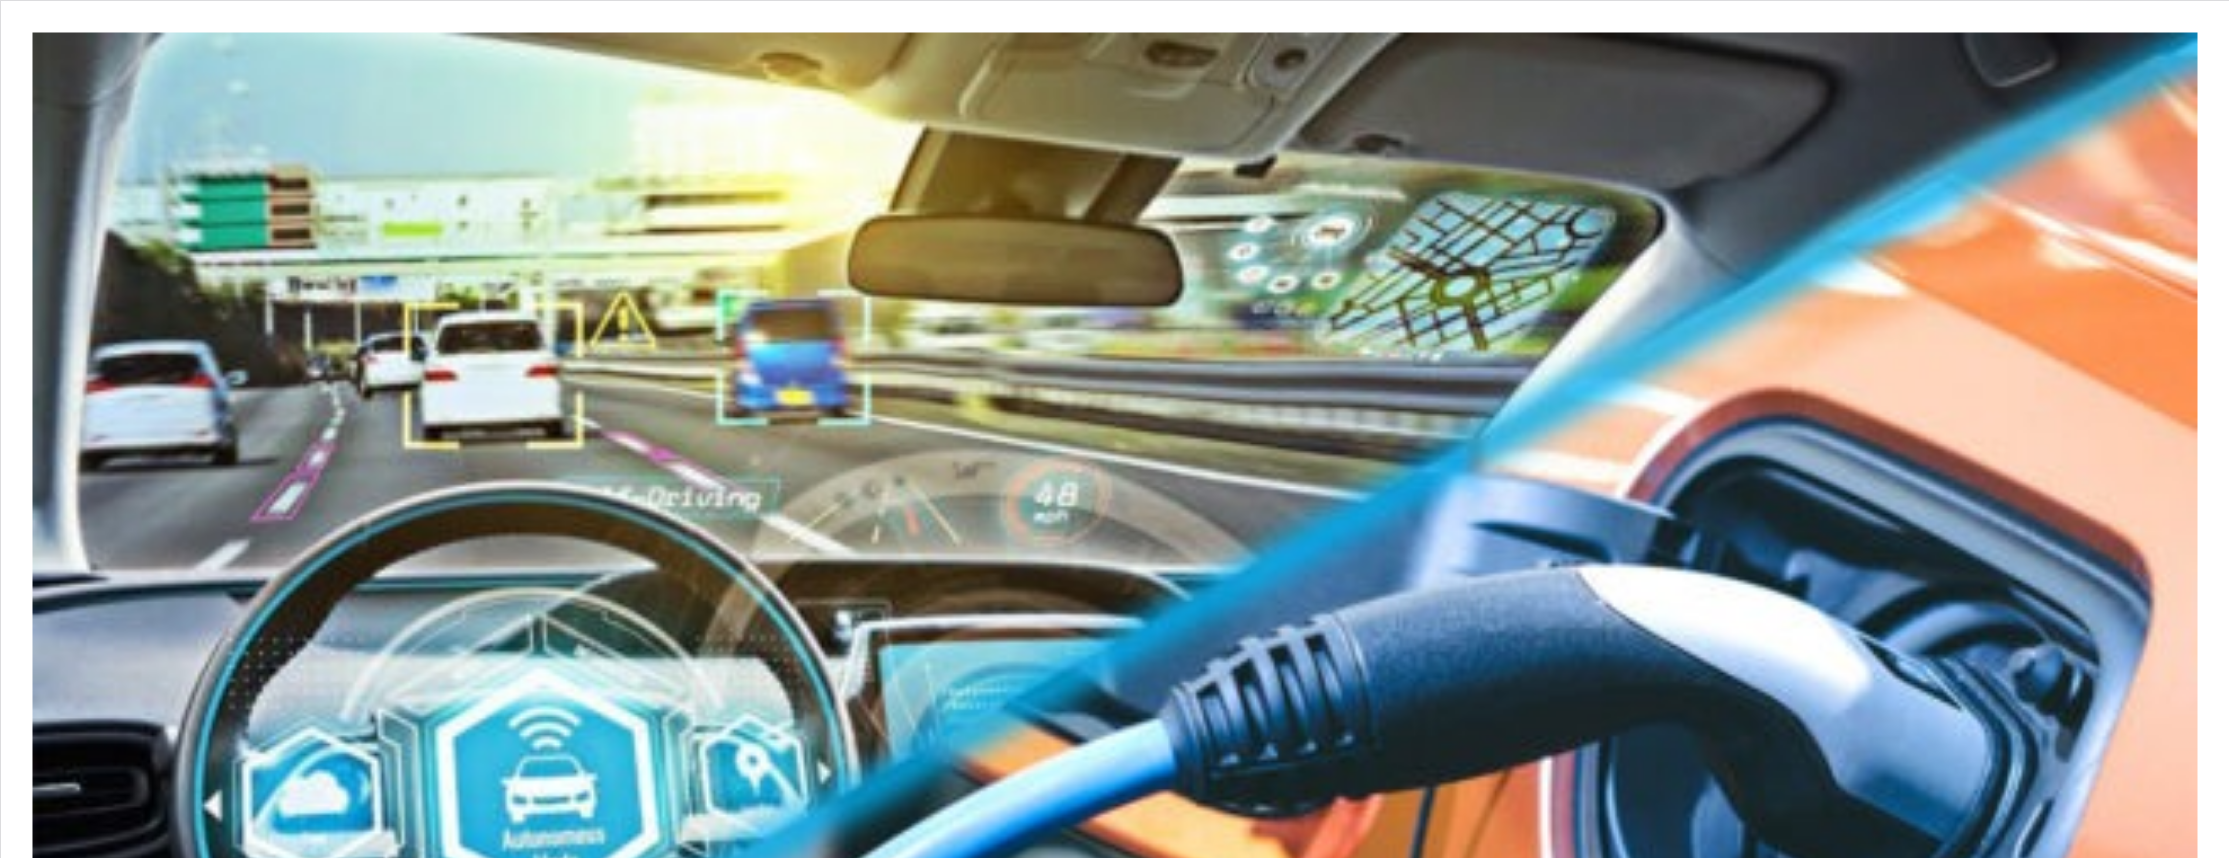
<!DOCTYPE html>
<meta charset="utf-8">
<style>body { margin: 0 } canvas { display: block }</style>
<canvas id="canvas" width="2229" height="858"></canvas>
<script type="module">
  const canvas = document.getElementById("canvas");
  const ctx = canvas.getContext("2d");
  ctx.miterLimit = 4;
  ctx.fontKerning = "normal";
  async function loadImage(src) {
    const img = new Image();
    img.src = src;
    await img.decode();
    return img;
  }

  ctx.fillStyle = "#ffffff";
  ctx.fillRect(0, 0, 2229, 858);
  ctx.strokeStyle = "#dcdcde";
  ctx.strokeRect(0.5, 0.5, 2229, 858);
  ctx.drawImage(await loadImage("img1.png"), 32, 32, 2166, 826);
</script>
